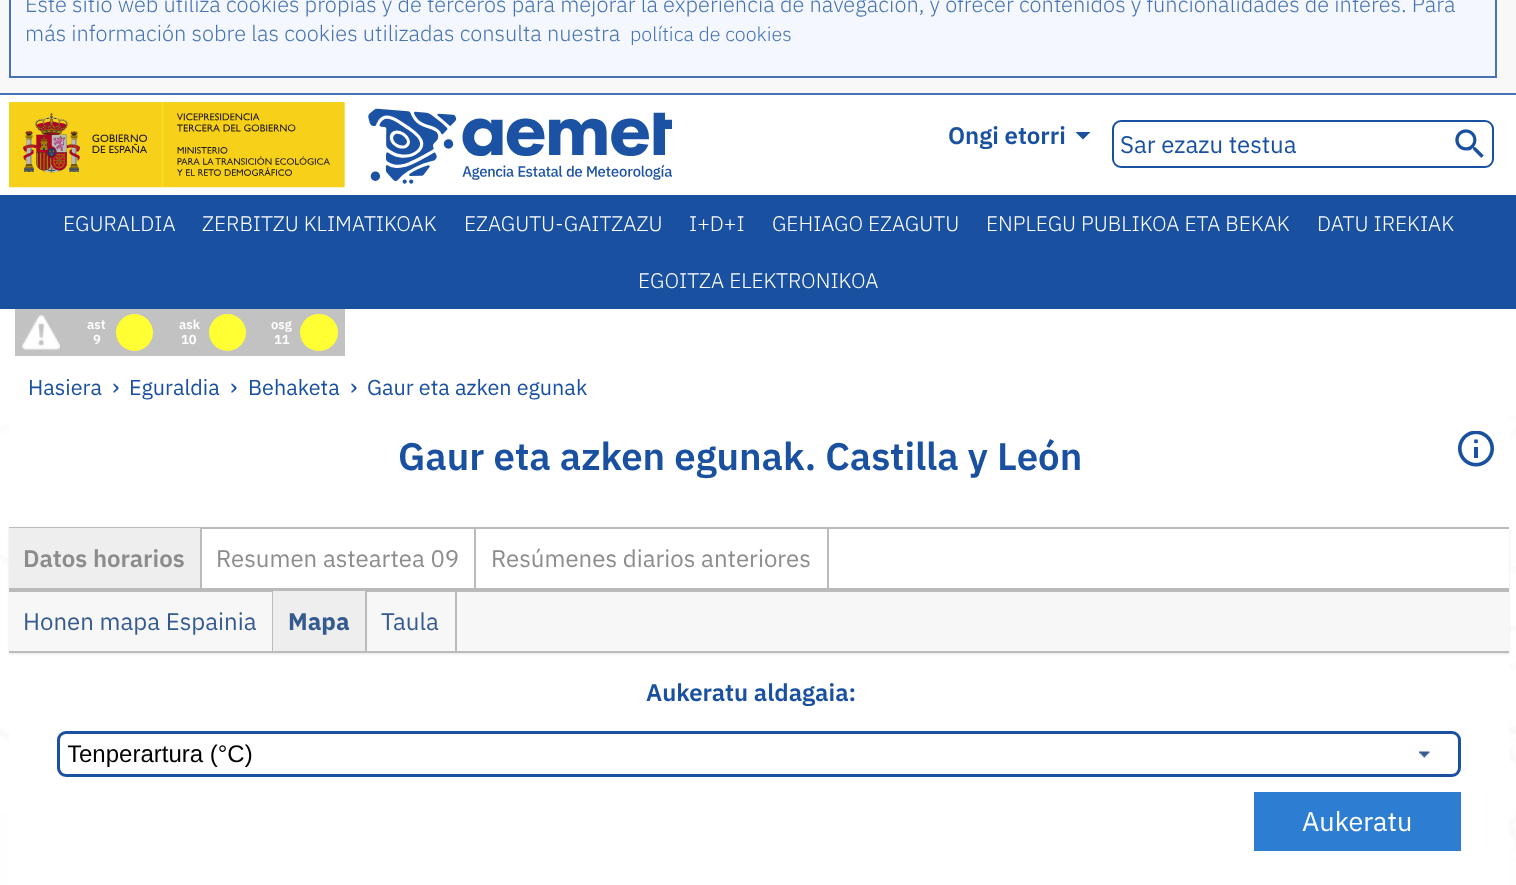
<!DOCTYPE html>
<meta charset="utf-8">
<style>body { margin: 0 } canvas { display: block }</style>
<canvas id="canvas" width="1516" height="885"></canvas>
<script type="module">
  const canvas = document.getElementById("canvas");
  const ctx = canvas.getContext("2d");
  ctx.miterLimit = 4;
  ctx.fontKerning = "normal";
  async function loadImage(src) {
    const img = new Image();
    img.src = src;
    await img.decode();
    return img;
  }

  ctx.fillStyle = "#ffffff";
  ctx.fillRect(0, 0, 1516, 885);
  ctx.fillStyle = "#f8f8f8";
  ctx.fillRect(0, 0, 1516, 93);
  ctx.fillStyle = "#4773b3";
  ctx.fillRect(0, 93, 1516, 2);
  ctx.fillStyle = "#f4f8fe";
  ctx.beginPath();
  ctx.rect(10, -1, 1486, 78);
  ctx.fill();
  ctx.strokeStyle = "#4773b3";
  ctx.lineWidth = 2;
  ctx.stroke();
  ctx.font = "300 21.85px IBM Plex Sans";
  ctx.fillStyle = "#4773b3";
  ctx.fillText("Este sitio web utiliza cookies propias y de terceros para mejorar la experiencia de navegación, y ofrecer contenidos y funcionalidades de interés. Para", 25, 12);
  ctx.fillText("más información sobre las cookies utilizadas consulta nuestra", 25, 41);
  ctx.font = "300 19.75px IBM Plex Sans";
  ctx.fillText("política de cookies", 630, 41);
  ctx.drawImage(await loadImage("img1.png"), 9, 102, 663, 86);
  ctx.font = "600 24px IBM Plex Sans";
  ctx.fillStyle = "#1950a0";
  ctx.fillText("Ongi etorri", 948, 144);
  ctx.beginPath();
  ctx.moveTo(1075.5, 132);
  ctx.lineTo(1090.5, 132);
  ctx.lineTo(1083, 139.5);
  ctx.closePath();
  ctx.fill();
  ctx.beginPath();
  ctx.roundRect(1113, 121, 380, 46, 8);
  ctx.strokeStyle = "#1950a0";
  ctx.stroke();
  ctx.font = "24px IBM Plex Sans";
  ctx.fillText("Sar ezazu testua", 1120, 153);
  ctx.drawImage(await loadImage("img2.png"), 1455, 129, 29, 29);
  ctx.fillRect(0, 195, 1516, 114);
  ctx.font = "300 21px IBM Plex Sans";
  ctx.fillStyle = "#ffffff";
  ctx.fillText("EGURALDIA", 63, 231);
  ctx.fillText("ZERBITZU KLIMATIKOAK", 202, 231);
  ctx.fillText("EZAGUTU-GAITZAZU", 464, 231);
  ctx.fillText("I+D+I", 689, 231);
  ctx.fillText("GEHIAGO EZAGUTU", 772, 231);
  ctx.fillText("ENPLEGU PUBLIKOA ETA BEKAK", 986, 231);
  ctx.fillText("DATU IREKIAK", 1317, 231);
  ctx.fillText("EGOITZA ELEKTRONIKOA", 638, 288);
  ctx.drawImage(await loadImage("img3.png"), 0, 415, 1516, 470);
  ctx.fillStyle = "#c2c2c2";
  ctx.fillRect(15, 309, 330, 47);
  ctx.drawImage(await loadImage("img4.png"), 22, 314, 38, 36);
  ctx.font = "600 13px IBM Plex Sans";
  ctx.fillStyle = "#ffffff";
  ctx.fillText("ast", 87, 329);
  ctx.fillText("9", 93, 344);
  ctx.fillStyle = "#ffff33";
  ctx.beginPath();
  ctx.arc(134.5, 332.5, 18.5, 0, Math.PI * 2);
  ctx.fill();
  ctx.fillStyle = "#ffffff";
  ctx.fillText("ask", 179, 329);
  ctx.fillText("10", 181, 344);
  ctx.fillStyle = "#ffff33";
  ctx.beginPath();
  ctx.arc(227.5, 332.5, 18.5, 0, Math.PI * 2);
  ctx.fill();
  ctx.fillStyle = "#ffffff";
  ctx.fillText("osg", 271, 329);
  ctx.fillText("11", 274, 344);
  ctx.fillStyle = "#ffff33";
  ctx.beginPath();
  ctx.roundRect(300, 314, 38, 37, 18.5);
  ctx.fill();
  ctx.fillStyle = "#ffffff";
  ctx.fillRect(9, 415, 1500, 470);
  ctx.font = "21.6px IBM Plex Sans";
  ctx.fillStyle = "#1950a0";
  ctx.fillText("Hasiera", 28, 395);
  ctx.font = "24px IBM Plex Sans";
  ctx.fillText("›", 112, 395);
  ctx.font = "21.6px IBM Plex Sans";
  ctx.fillText("Eguraldia", 129, 395);
  ctx.font = "24px IBM Plex Sans";
  ctx.fillText("›", 230, 395);
  ctx.font = "21.6px IBM Plex Sans";
  ctx.fillText("Behaketa", 248, 395);
  ctx.font = "24px IBM Plex Sans";
  ctx.fillText("›", 350, 395);
  ctx.font = "21.6px IBM Plex Sans";
  ctx.fillText("Gaur eta azken egunak", 367, 395);
  ctx.font = "600 38.4px IBM Plex Sans";
  ctx.fillText("Gaur eta azken egunak. Castilla y León", 398, 470);
  ctx.drawImage(await loadImage("img5.png"), 1458, 431, 36, 36);
  ctx.save();
  ctx.beginPath();
  ctx.moveTo(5, 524);
  ctx.lineTo(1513, 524);
  ctx.lineTo(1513, 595);
  ctx.lineTo(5, 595);
  ctx.closePath();
  ctx.moveTo(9, 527);
  ctx.lineTo(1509, 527);
  ctx.lineTo(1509, 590);
  ctx.lineTo(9, 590);
  ctx.closePath();
  ctx.clip("evenodd");
  ctx.fillStyle = "rgba(0, 0, 0, 0.1)";
  ctx.filter = "blur(1px)";
  ctx.beginPath();
  ctx.rect(9, 528, 1500, 63);
  ctx.fill();
  ctx.filter = "none";
  ctx.restore();
  ctx.fillStyle = "#bbbbbb";
  ctx.fillRect(9, 527, 1500, 2);
  ctx.fillRect(9, 588, 1500, 2);
  ctx.fillStyle = "#eeeeee";
  ctx.fillRect(9, 528, 191, 60);
  ctx.fillStyle = "#bbbbbb";
  ctx.fillRect(200, 528, 2, 60);
  ctx.font = "600 24px IBM Plex Sans";
  ctx.fillStyle = "#8c8c8c";
  ctx.fillText("Datos horarios", 23, 567);
  ctx.fillStyle = "#bbbbbb";
  ctx.fillRect(474, 528, 2, 60);
  ctx.font = "24px IBM Plex Sans";
  ctx.fillStyle = "#8c8c8c";
  ctx.fillText("Resumen asteartea 09", 216, 567);
  ctx.fillStyle = "#bbbbbb";
  ctx.fillRect(827, 528, 2, 60);
  ctx.fillStyle = "#8c8c8c";
  ctx.fillText("Resúmenes diarios anteriores", 491, 567);
  ctx.fillStyle = "rgba(0, 0, 0, 0.1)";
  ctx.filter = "blur(1px)";
  ctx.beginPath();
  ctx.rect(9, 591, 1500, 63);
  ctx.fill();
  ctx.filter = "none";
  ctx.fillStyle = "#f7f7f7";
  ctx.fillRect(9, 592, 1500, 59);
  ctx.fillStyle = "#bbbbbb";
  ctx.fillRect(9, 590, 1500, 2);
  ctx.fillRect(9, 651, 1500, 2);
  ctx.fillRect(272, 591, 1, 60);
  ctx.fillStyle = "#345a8e";
  ctx.fillText("Honen mapa Espainia", 23, 630);
  ctx.fillStyle = "#eeeeee";
  ctx.fillRect(273, 591, 92, 60);
  ctx.fillStyle = "#bbbbbb";
  ctx.fillRect(365, 591, 2, 60);
  ctx.font = "bold 24px IBM Plex Sans";
  ctx.fillStyle = "#345a8e";
  ctx.fillText("Mapa", 288, 630);
  ctx.fillStyle = "#bbbbbb";
  ctx.fillRect(455, 591, 2, 60);
  ctx.font = "24px IBM Plex Sans";
  ctx.fillStyle = "#345a8e";
  ctx.fillText("Taula", 381, 630);
  ctx.font = "600 24px IBM Plex Sans";
  ctx.fillStyle = "#1950a0";
  ctx.fillText("Aukeratu aldagaia:", 646, 701);
  ctx.drawImage(await loadImage("img6.png"), 1419, 751, 11, 7);
  ctx.beginPath();
  ctx.roundRect(58.5, 732.5, 1401, 43, 7.5);
  ctx.lineWidth = 3;
  ctx.stroke();
  ctx.save();
  ctx.beginPath();
  ctx.rect(68, 741, 1338, 26);
  ctx.clip();
  ctx.font = "24px Liberation Sans";
  ctx.fillStyle = "#000000";
  ctx.fillText("Tenperartura (°C)", 67, 762);
  ctx.restore();
  ctx.fillStyle = "#2d7dd2";
  ctx.fillRect(1254, 792, 207, 59);
  ctx.font = "27px IBM Plex Sans";
  ctx.fillStyle = "#ffffff";
  ctx.fillText("Aukeratu", 1302, 831);
</script>
